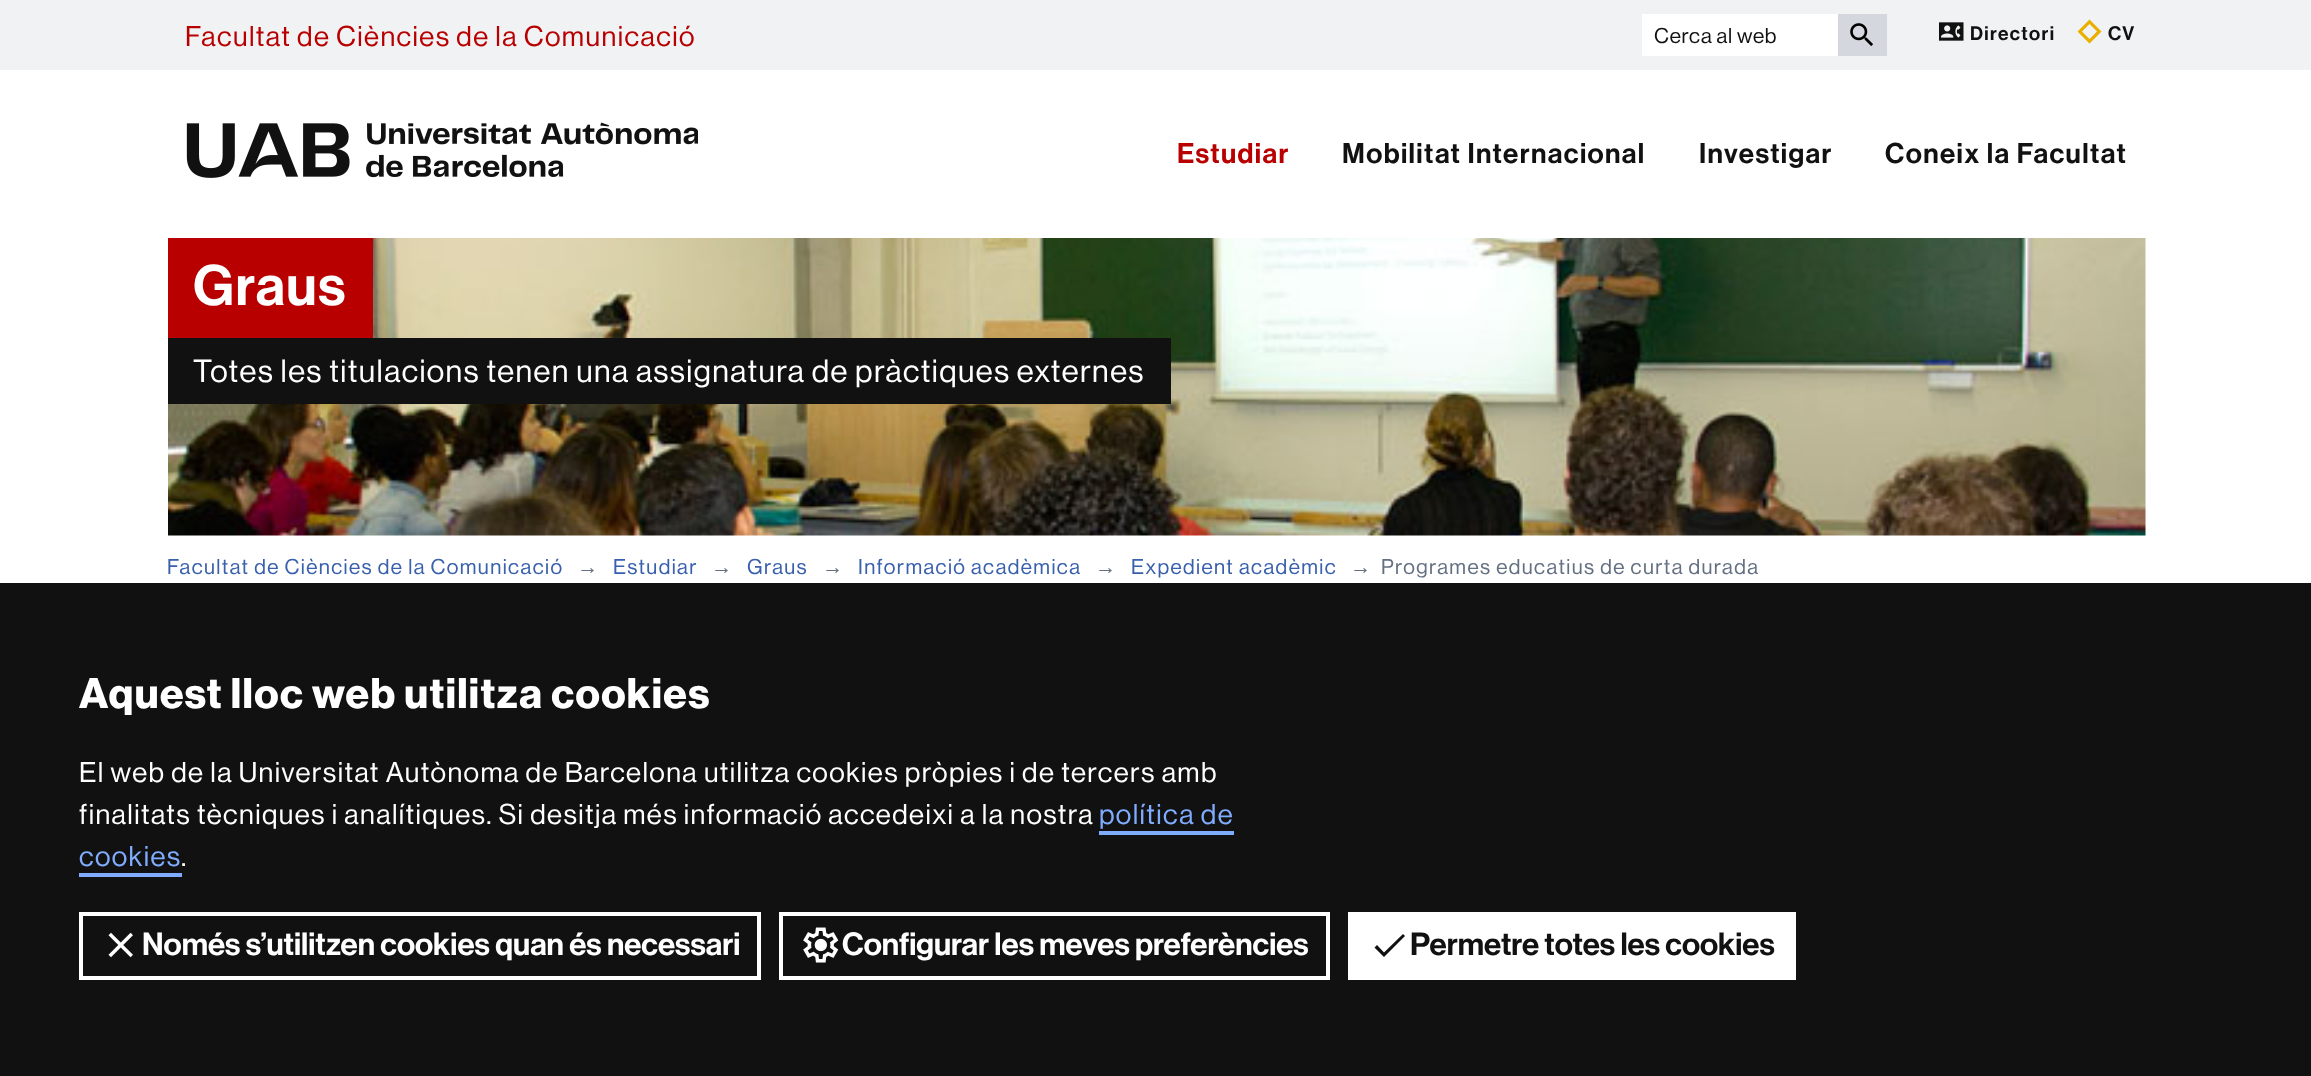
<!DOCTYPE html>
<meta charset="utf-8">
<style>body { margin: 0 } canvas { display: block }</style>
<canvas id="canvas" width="2311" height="1076"></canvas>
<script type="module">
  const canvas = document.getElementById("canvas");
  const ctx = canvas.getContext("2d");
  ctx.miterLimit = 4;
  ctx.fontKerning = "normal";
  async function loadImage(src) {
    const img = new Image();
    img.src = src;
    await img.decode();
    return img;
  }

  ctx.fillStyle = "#ffffff";
  ctx.fillRect(0, 0, 2311, 1076);
  ctx.fillStyle = "#f1f2f4";
  ctx.fillRect(0, 0, 2311, 70);
  ctx.letterSpacing = "1.4px";
  ctx.font = "500 28px 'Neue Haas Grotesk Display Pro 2'";
  ctx.fillStyle = "#b80000";
  ctx.fillText("Facultat de Ciències de la Comunicació", 185, 46);
  ctx.fillStyle = "#ffffff";
  ctx.fillRect(1642, 14, 196, 42);
  ctx.letterSpacing = "0.75px";
  ctx.font = "500 21px 'Neue Haas Grotesk Display Pro 2'";
  ctx.fillStyle = "#111111";
  ctx.fillText("Cerca al web", 1654, 43);
  ctx.fillStyle = "#d4d8de";
  ctx.fillRect(1838, 14, 49, 42);
  ctx.drawImage(await loadImage("img1.png"), 1850, 23, 23, 23);
  ctx.drawImage(await loadImage("img2.png"), 1939, 22, 25, 19);
  ctx.letterSpacing = "1.4px";
  ctx.font = "500 19.25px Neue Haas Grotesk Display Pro";
  ctx.fillStyle = "#111111";
  ctx.fillText("Directori", 1970, 40);
  ctx.fillText("CV", 2108, 40);
  ctx.fillStyle = "#eab000";
  ctx.beginPath();
  ctx.moveTo(2089.5, 43.5);
  ctx.lineTo(2077.5, 31.5);
  ctx.lineTo(2089.5, 19.5);
  ctx.lineTo(2101.5, 31.5);
  ctx.closePath();
  ctx.moveTo(2082, 31.5);
  ctx.lineTo(2089.5, 39);
  ctx.lineTo(2097, 31.5);
  ctx.lineTo(2089.5, 24);
  ctx.closePath();
  ctx.fill();
  ctx.drawImage(await loadImage("img3.png"), 186, 122, 512, 56);
  ctx.font = "500 28px Neue Haas Grotesk Display Pro";
  ctx.fillStyle = "#b80000";
  ctx.fillText("Estudiar", 1177, 163);
  ctx.fillStyle = "#111111";
  ctx.fillText("Mobilitat Internacional", 1342, 163);
  ctx.fillText("Investigar", 1699, 163);
  ctx.fillText("Coneix la Facultat", 1885, 163);
  ctx.drawImage(await loadImage("img4.png"), 168, 238, 1978, 298);
  ctx.fillStyle = "#b80000";
  ctx.fillRect(168, 238, 205, 100);
  ctx.font = "500 56px Neue Haas Grotesk Display Pro";
  ctx.fillStyle = "#ffffff";
  ctx.fillText("Graus", 193, 305);
  ctx.fillStyle = "#111111";
  ctx.fillRect(168, 338, 1003, 66);
  ctx.font = "500 31.5px 'Neue Haas Grotesk Display Pro 2'";
  ctx.fillStyle = "#ffffff";
  ctx.fillText("Totes les titulacions tenen una assignatura de pràctiques externes", 193, 382);
  ctx.font = "500 21px 'Neue Haas Grotesk Display Pro 2'";
  ctx.fillStyle = "#3960ac";
  ctx.fillText("Facultat de Ciències de la Comunicació", 167, 574);
  ctx.font = "21px Liberation Sans";
  ctx.fillStyle = "#647082";
  ctx.fillText("→", 577, 574);
  ctx.font = "500 21px 'Neue Haas Grotesk Display Pro 2'";
  ctx.fillStyle = "#3960ac";
  ctx.fillText("Estudiar", 613, 574);
  ctx.font = "21px Liberation Sans";
  ctx.fillStyle = "#647082";
  ctx.fillText("→", 711, 574);
  ctx.font = "500 21px 'Neue Haas Grotesk Display Pro 2'";
  ctx.fillStyle = "#3960ac";
  ctx.fillText("Graus", 747, 574);
  ctx.font = "21px Liberation Sans";
  ctx.fillStyle = "#647082";
  ctx.fillText("→", 822, 574);
  ctx.font = "500 21px 'Neue Haas Grotesk Display Pro 2'";
  ctx.fillStyle = "#3960ac";
  ctx.fillText("Informació acadèmica", 858, 574);
  ctx.font = "21px Liberation Sans";
  ctx.fillStyle = "#647082";
  ctx.fillText("→", 1095, 574);
  ctx.font = "500 21px 'Neue Haas Grotesk Display Pro 2'";
  ctx.fillStyle = "#3960ac";
  ctx.fillText("Expedient acadèmic", 1131, 574);
  ctx.font = "21px Liberation Sans";
  ctx.fillStyle = "#647082";
  ctx.fillText("→", 1350, 574);
  ctx.font = "500 21px 'Neue Haas Grotesk Display Pro 2'";
  ctx.fillText("Programes educatius de curta durada", 1381, 574);
  ctx.fillStyle = "#111111";
  ctx.fillRect(0, 583, 2311, 493);
  ctx.font = "bold 42px Neue Haas Grotesk Display Pro";
  ctx.fillStyle = "#ffffff";
  ctx.fillText("Aquest lloc web utilitza cookies", 79, 708);
  ctx.font = "500 28px 'Neue Haas Grotesk Display Pro 2'";
  ctx.fillText("El web de la Universitat Autònoma de Barcelona utilitza cookies pròpies i de tercers amb", 79, 782);
  ctx.fillText("finalitats tècniques i analítiques. Si desitja més informació accedeixi a la nostra", 79, 824);
  ctx.fillStyle = "#80acff";
  ctx.fillText("política de", 1099, 824);
  ctx.fillRect(1099, 831, 135, 4);
  ctx.fillText("cookies", 79, 866);
  ctx.fillRect(79, 873, 103, 4);
  ctx.fillStyle = "#ffffff";
  ctx.fillText(".", 181, 866);
  ctx.strokeStyle = "#ffffff";
  ctx.lineWidth = 4;
  ctx.strokeRect(81, 914, 678, 64);
  ctx.drawImage(await loadImage("img5.png"), 108, 932, 25, 26);
  ctx.letterSpacing = "0px";
  ctx.font = "500 31.5px Neue Haas Grotesk Display Pro";
  ctx.fillText("Només s’utilitzen cookies quan és necessari", 142, 955);
  ctx.strokeRect(781, 914, 547, 64);
  ctx.drawImage(await loadImage("img6.png"), 803, 927, 36, 36);
  ctx.fillText("Configurar les meves preferències", 842, 955);
  ctx.fillRect(1348, 912, 448, 68);
  ctx.fillStyle = "#111111";
  ctx.beginPath();
  ctx.moveTo(1384, 952.5);
  ctx.lineTo(1377, 945);
  ctx.lineTo(1374.5, 947.5);
  ctx.lineTo(1384, 957);
  ctx.lineTo(1405, 936);
  ctx.lineTo(1403, 934);
  ctx.closePath();
  ctx.fill();
  ctx.fillText("Permetre totes les cookies", 1410, 955);
</script>
